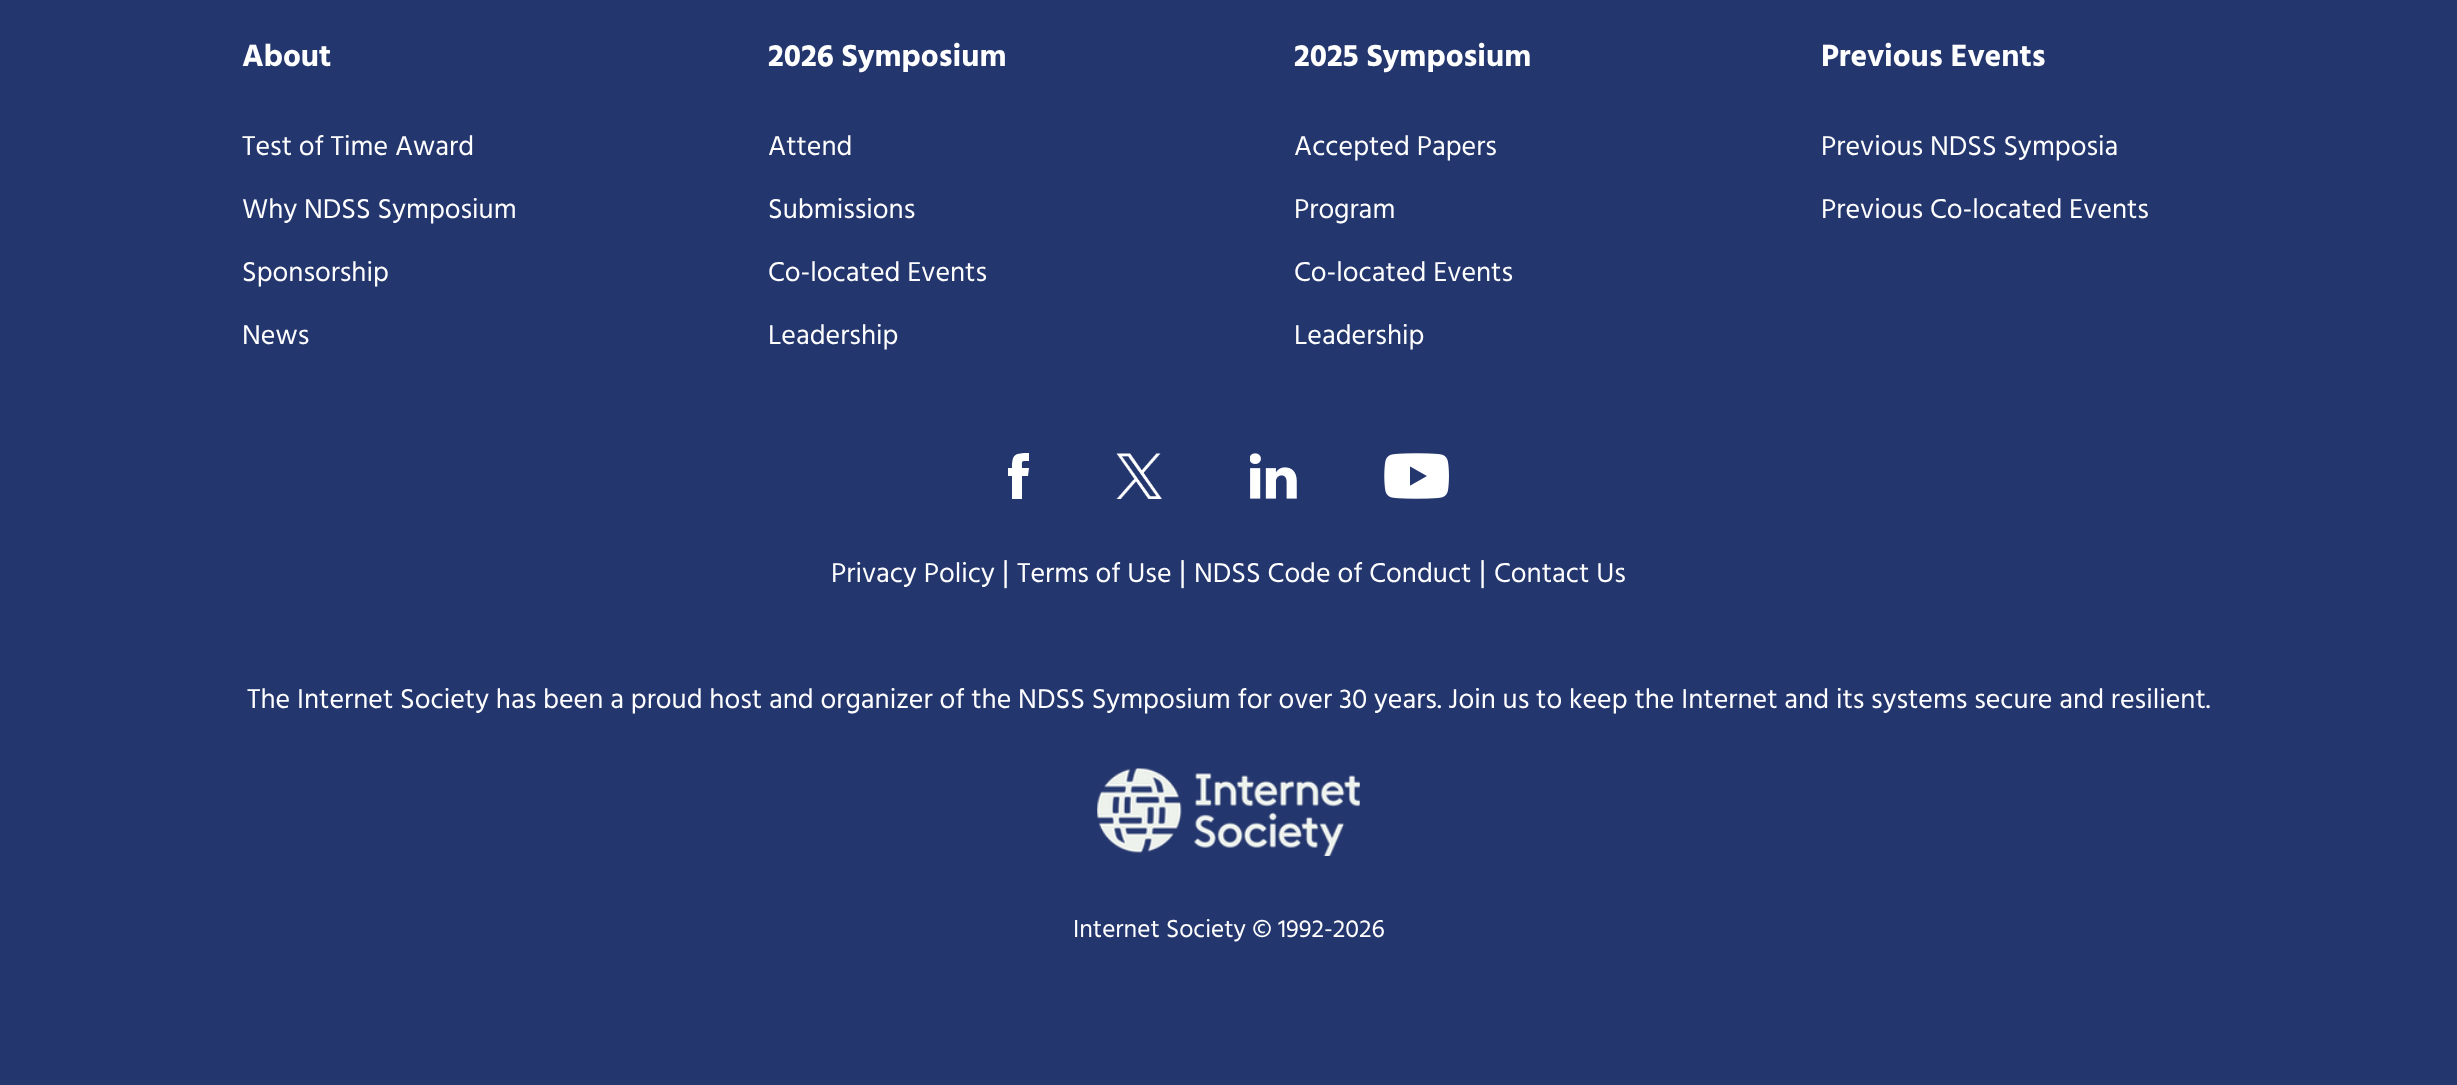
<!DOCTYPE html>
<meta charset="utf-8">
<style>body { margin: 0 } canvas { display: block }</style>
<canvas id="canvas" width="2457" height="1085"></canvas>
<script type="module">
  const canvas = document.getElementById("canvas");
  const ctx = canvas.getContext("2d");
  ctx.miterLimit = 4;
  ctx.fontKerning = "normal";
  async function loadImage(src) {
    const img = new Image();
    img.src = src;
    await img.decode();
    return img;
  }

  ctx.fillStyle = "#24366e";
  ctx.fillRect(0, 0, 2457, 1085);
  ctx.font = "bold 31.5px Hind";
  ctx.fillStyle = "#ffffff";
  ctx.fillText("About", 242, 66);
  ctx.font = "28px Hind";
  ctx.fillText("Test of Time Award", 242, 155);
  ctx.fillText("Why NDSS Symposium", 242, 218);
  ctx.fillText("Sponsorship", 242, 281);
  ctx.fillText("News", 242, 344);
  ctx.font = "bold 31.5px Hind";
  ctx.fillText("2026 Symposium", 768, 66);
  ctx.font = "28px Hind";
  ctx.fillText("Attend", 768, 155);
  ctx.fillText("Submissions", 768, 218);
  ctx.fillText("Co-located Events", 768, 281);
  ctx.fillText("Leadership", 768, 344);
  ctx.font = "bold 31.5px Hind";
  ctx.fillText("2025 Symposium", 1294, 66);
  ctx.font = "28px Hind";
  ctx.fillText("Accepted Papers", 1294, 155);
  ctx.fillText("Program", 1294, 218);
  ctx.fillText("Co-located Events", 1294, 281);
  ctx.fillText("Leadership", 1294, 344);
  ctx.font = "bold 31.5px Hind";
  ctx.fillText("Previous Events", 1821, 66);
  ctx.font = "28px Hind";
  ctx.fillText("Previous NDSS Symposia", 1821, 155);
  ctx.fillText("Previous Co-located Events", 1821, 218);
  ctx.beginPath();
  ctx.moveTo(1028, 476);
  ctx.lineTo(1022, 476);
  ctx.lineTo(1022, 499);
  ctx.lineTo(1012, 499);
  ctx.lineTo(1012, 476);
  ctx.lineTo(1008, 476);
  ctx.lineTo(1008, 468);
  ctx.lineTo(1012, 468);
  ctx.bezierCurveTo(1012, 454, 1015, 453, 1029, 453);
  ctx.lineTo(1029, 461);
  ctx.bezierCurveTo(1021, 461, 1022, 460, 1022, 468);
  ctx.lineTo(1029, 468);
  ctx.lineTo(1028, 476);
  ctx.fill();
  ctx.drawImage(await loadImage("img1.png"), 1116, 453, 46, 46);
  ctx.drawImage(await loadImage("img2.png"), 1250, 453, 47, 46);
  ctx.drawImage(await loadImage("img3.png"), 1384, 453, 65, 46);
  ctx.fillText("Privacy Policy", 831, 582);
  ctx.font = "31.5px Hind";
  ctx.fillText("|", 1002, 582);
  ctx.font = "28px Hind";
  ctx.fillText("Terms of Use", 1017, 582);
  ctx.font = "31.5px Hind";
  ctx.fillText("|", 1179, 582);
  ctx.font = "28px Hind";
  ctx.fillText("NDSS Code of Conduct", 1194, 582);
  ctx.font = "31.5px Hind";
  ctx.fillText("|", 1479, 582);
  ctx.font = "28px Hind";
  ctx.fillText("Contact Us", 1494, 582);
  ctx.fillText("The Internet Society has been a proud host and organizer of the NDSS Symposium for over 30 years. Join us to keep the Internet and its systems secure and resilient.", 247, 708);
  ctx.drawImage(await loadImage("img4.png"), 1097, 768, 263, 88);
  ctx.font = "25.25px Hind";
  ctx.fillText("Internet Society © 1992-2026", 1073, 937);
</script>
